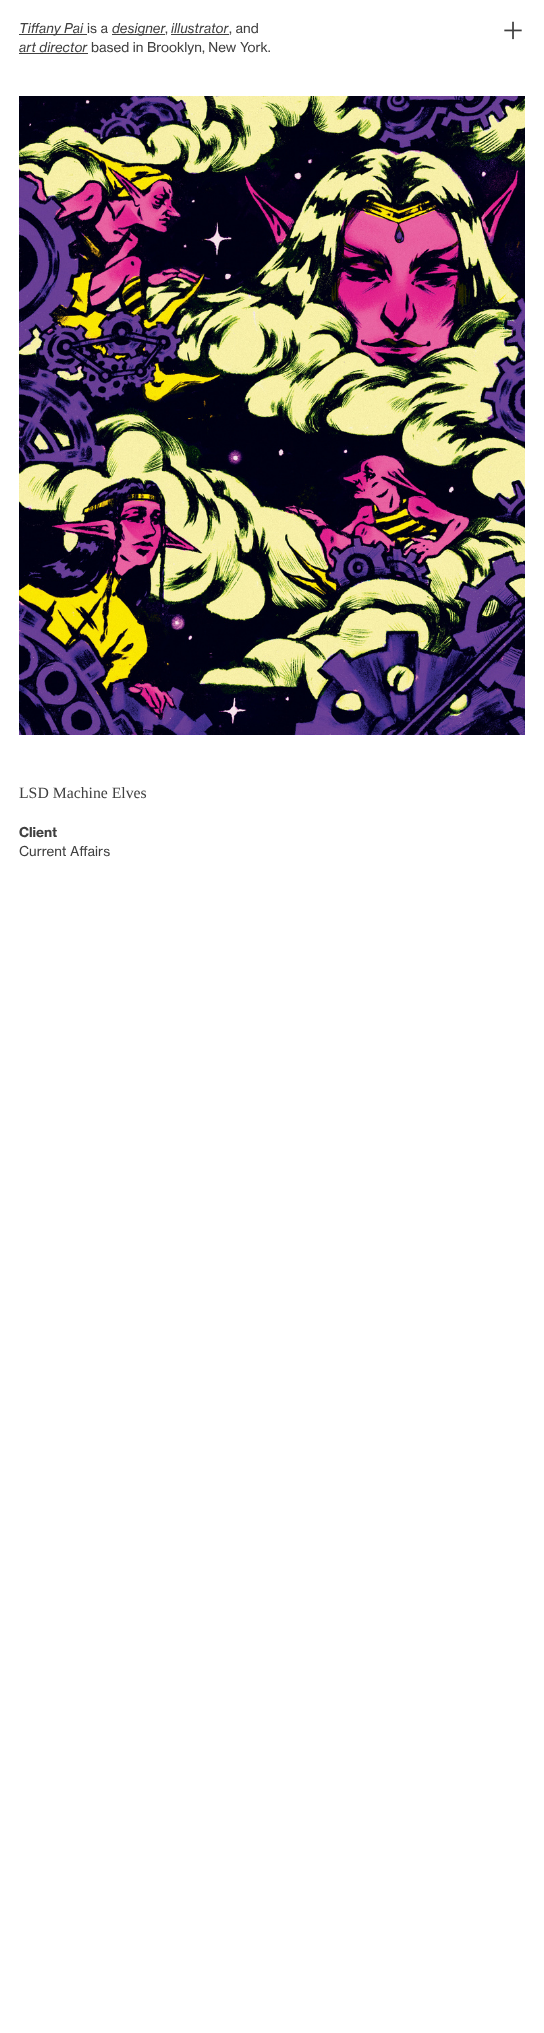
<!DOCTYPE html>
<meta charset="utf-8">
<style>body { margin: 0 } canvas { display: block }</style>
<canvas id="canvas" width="544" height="2033"></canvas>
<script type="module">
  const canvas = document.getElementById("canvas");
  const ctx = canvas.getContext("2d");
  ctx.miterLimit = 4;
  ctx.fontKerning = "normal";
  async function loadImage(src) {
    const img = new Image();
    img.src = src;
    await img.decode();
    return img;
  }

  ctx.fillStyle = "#ffffff";
  ctx.fillRect(0, 0, 544, 2033);
  ctx.fillStyle = "#404040";
  ctx.fillRect(19, 34, 68, 1);
  ctx.font = "italic 13.4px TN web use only";
  ctx.fillText("Tiffany Pai", 19, 33);
  ctx.font = "13.4px TN web use only";
  ctx.fillText("is a", 87, 33);
  ctx.fillRect(112, 34, 53, 1);
  ctx.fillText(",", 165, 33);
  ctx.font = "italic 13.4px TN web use only";
  ctx.fillText("designer", 112, 33);
  ctx.font = "13.4px TN web use only";
  ctx.fillText(", and", 229, 33);
  ctx.font = "italic 13.4px TN web use only";
  ctx.fillText("illustrator", 171, 33);
  ctx.fillRect(171, 34, 58, 1);
  ctx.fillText("art director", 19, 52);
  ctx.fillRect(19, 53, 69, 1);
  ctx.font = "13.4px TN web use only";
  ctx.fillText("based in Brooklyn, New York.", 91, 52);
  ctx.drawImage(await loadImage("img1.png"), 19, 96, 506, 639);
  ctx.font = "15.75px Liberation Serif";
  ctx.fillText("LSD Machine Elves", 19, 798);
  ctx.font = "bold 13.4px TN web use only";
  ctx.fillText("Client", 19, 837);
  ctx.font = "13.4px TN web use only";
  ctx.fillText("Current Affairs", 19, 856);
  ctx.drawImage(await loadImage("img2.png"), 504, 21, 18, 19);
</script>
